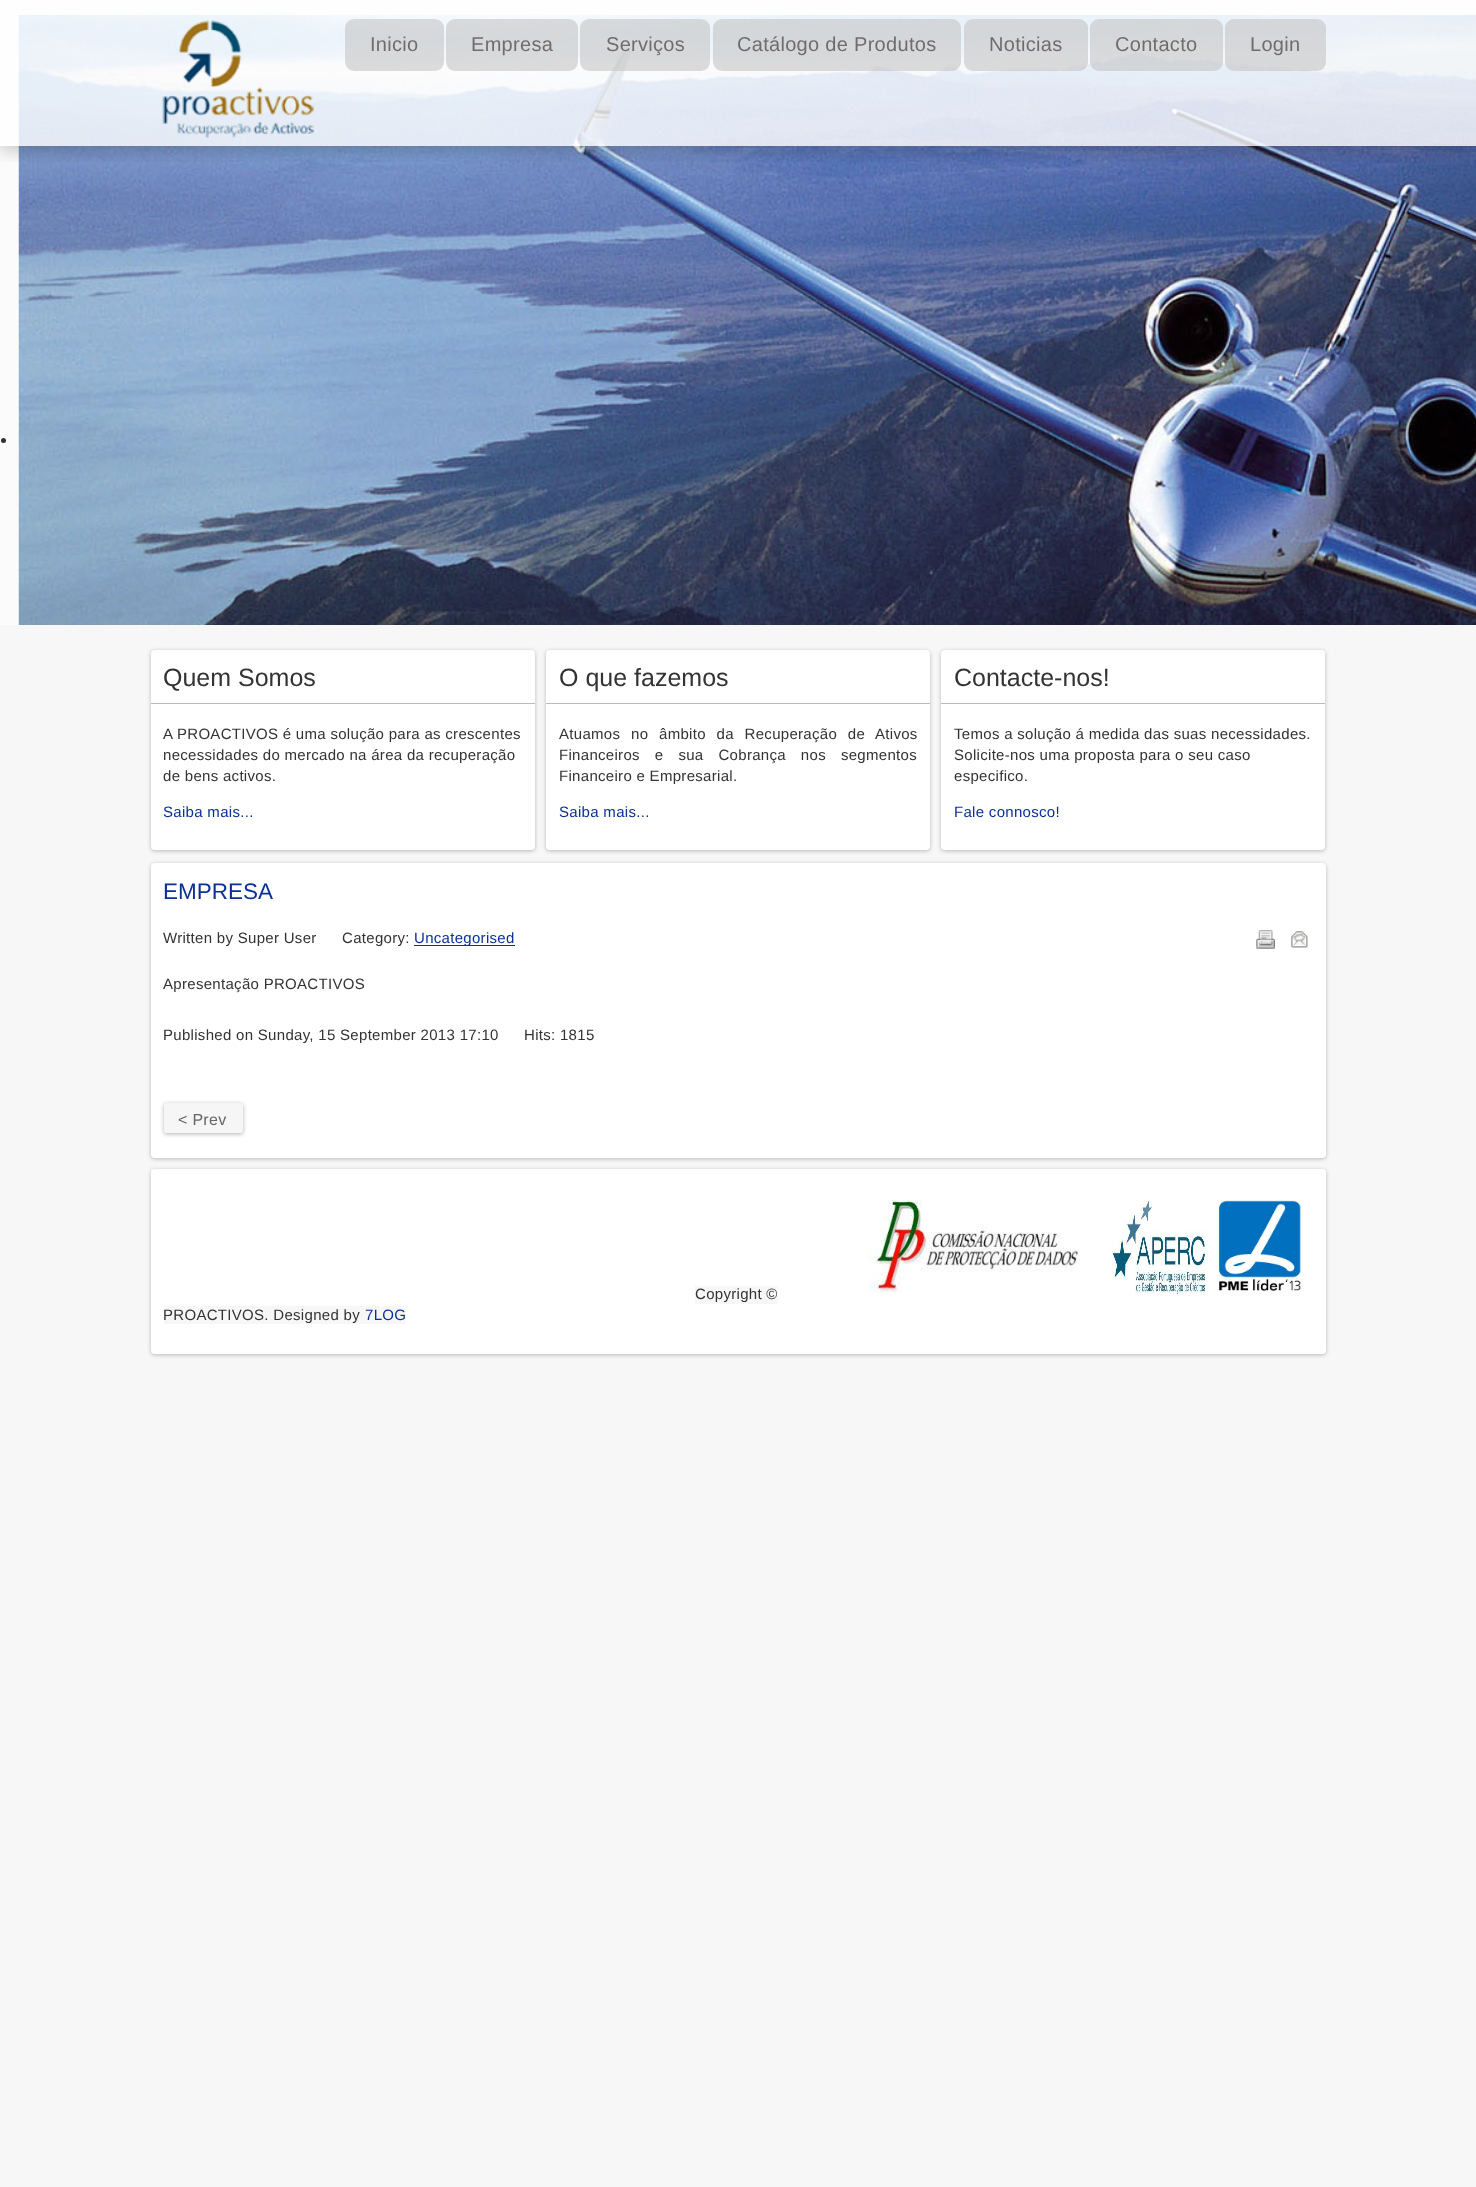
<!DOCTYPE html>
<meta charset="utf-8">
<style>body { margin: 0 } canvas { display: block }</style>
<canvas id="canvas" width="1476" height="2187"></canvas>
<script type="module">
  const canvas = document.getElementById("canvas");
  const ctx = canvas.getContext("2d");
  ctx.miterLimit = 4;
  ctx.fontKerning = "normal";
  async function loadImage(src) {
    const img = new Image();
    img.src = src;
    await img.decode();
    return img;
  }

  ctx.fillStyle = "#f7f7f7";
  ctx.fillRect(0, 0, 1476, 2187);
  ctx.fillStyle = "#fbfbfb";
  ctx.fillRect(0, 0, 1476, 625);
  ctx.fillStyle = "#333333";
  ctx.beginPath();
  ctx.arc(3.5, 440.5, 2.5, 0, Math.PI * 2);
  ctx.fill();
  ctx.drawImage(await loadImage("img1.png"), 18, 15, 1458, 610);
  ctx.save();
  ctx.beginPath();
  ctx.rect(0, 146, 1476, 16);
  ctx.clip();
  ctx.fillStyle = "rgba(0, 0, 0, 0.25)";
  ctx.filter = "blur(9.5px)";
  ctx.beginPath();
  ctx.rect(0, 3, 1476, 146);
  ctx.fill();
  ctx.filter = "none";
  ctx.restore();
  ctx.fillStyle = "rgba(255, 255, 255, 0.8)";
  ctx.fillRect(0, 0, 1476, 146);
  ctx.drawImage(await loadImage("img2.png"), 162, 20, 152, 118);
  ctx.fillStyle = "rgba(196, 196, 196, 0.6)";
  ctx.beginPath();
  ctx.roundRect(345, 19, 99, 52, 9);
  ctx.fill();
  ctx.letterSpacing = "0.3px";
  ctx.font = "20px Liberation Sans";
  ctx.fillStyle = "#706c6c";
  ctx.fillText("Inicio", 370, 51);
  ctx.fillStyle = "rgba(196, 196, 196, 0.6)";
  ctx.beginPath();
  ctx.roundRect(446, 19, 132, 52, 9);
  ctx.fill();
  ctx.fillStyle = "#706c6c";
  ctx.fillText("Empresa", 471, 51);
  ctx.fillStyle = "rgba(196, 196, 196, 0.6)";
  ctx.beginPath();
  ctx.roundRect(580, 19, 130, 52, 9);
  ctx.fill();
  ctx.fillStyle = "#706c6c";
  ctx.fillText("Serviços", 606, 51);
  ctx.fillStyle = "rgba(196, 196, 196, 0.6)";
  ctx.beginPath();
  ctx.roundRect(713, 19, 248, 52, 9);
  ctx.fill();
  ctx.fillStyle = "#706c6c";
  ctx.fillText("Catálogo de Produtos", 737, 51);
  ctx.fillStyle = "rgba(196, 196, 196, 0.6)";
  ctx.beginPath();
  ctx.roundRect(964, 19, 124, 52, 9);
  ctx.fill();
  ctx.fillStyle = "#706c6c";
  ctx.fillText("Noticias", 989, 51);
  ctx.fillStyle = "rgba(196, 196, 196, 0.6)";
  ctx.beginPath();
  ctx.roundRect(1090, 19, 133, 52, 9);
  ctx.fill();
  ctx.fillStyle = "#706c6c";
  ctx.fillText("Contacto", 1115, 51);
  ctx.fillStyle = "rgba(196, 196, 196, 0.6)";
  ctx.beginPath();
  ctx.roundRect(1225, 19, 101, 52, 9);
  ctx.fill();
  ctx.fillStyle = "#706c6c";
  ctx.fillText("Login", 1250, 51);
  ctx.fillStyle = "rgba(0, 0, 0, 0.25)";
  ctx.filter = "blur(2px)";
  ctx.beginPath();
  ctx.roundRect(151, 651, 384, 200, 4);
  ctx.fill();
  ctx.filter = "none";
  ctx.fillStyle = "#ffffff";
  ctx.beginPath();
  ctx.roundRect(151, 650, 384, 200, 4);
  ctx.fill();
  ctx.letterSpacing = "0px";
  ctx.font = "25px Liberation Sans";
  ctx.fillStyle = "#333333";
  ctx.fillText("Quem Somos", 163, 686);
  ctx.fillStyle = "#bbbbbb";
  ctx.fillRect(151, 703, 384, 1);
  ctx.letterSpacing = "0.3px";
  ctx.font = "15px Liberation Sans";
  ctx.fillStyle = "#333333";
  ctx.fillText("A PROACTIVOS é uma solução para as crescentes", 163, 739);
  ctx.fillText("necessidades do mercado na área da recuperação", 163, 760);
  ctx.fillText("de bens activos.", 163, 781);
  ctx.fillStyle = "#0a3196";
  ctx.fillText("Saiba mais...", 163, 817);
  ctx.fillStyle = "rgba(0, 0, 0, 0.25)";
  ctx.filter = "blur(2px)";
  ctx.beginPath();
  ctx.roundRect(546, 651, 384, 200, 4);
  ctx.fill();
  ctx.filter = "none";
  ctx.fillStyle = "#ffffff";
  ctx.beginPath();
  ctx.roundRect(546, 650, 384, 200, 4);
  ctx.fill();
  ctx.letterSpacing = "0px";
  ctx.font = "25px Liberation Sans";
  ctx.fillStyle = "#333333";
  ctx.fillText("O que fazemos", 559, 686);
  ctx.fillStyle = "#bbbbbb";
  ctx.fillRect(546, 703, 384, 1);
  ctx.letterSpacing = "0.3px";
  ctx.wordSpacing = "6.25px";
  ctx.font = "15px Liberation Sans";
  ctx.fillStyle = "#333333";
  ctx.fillText("Atuamos no âmbito da Recuperação de Ativos", 559, 739);
  ctx.wordSpacing = "10.5px";
  ctx.fillText("Financeiros e sua Cobrança nos segmentos", 559, 760);
  ctx.wordSpacing = "0px";
  ctx.fillText("Financeiro e Empresarial.", 559, 781);
  ctx.fillStyle = "#0a3196";
  ctx.fillText("Saiba mais...", 559, 817);
  ctx.fillStyle = "rgba(0, 0, 0, 0.25)";
  ctx.filter = "blur(2px)";
  ctx.beginPath();
  ctx.roundRect(941, 651, 384, 200, 4);
  ctx.fill();
  ctx.filter = "none";
  ctx.fillStyle = "#ffffff";
  ctx.beginPath();
  ctx.roundRect(941, 650, 384, 200, 4);
  ctx.fill();
  ctx.letterSpacing = "0px";
  ctx.font = "25px Liberation Sans";
  ctx.fillStyle = "#333333";
  ctx.fillText("Contacte-nos!", 954, 686);
  ctx.fillStyle = "#bbbbbb";
  ctx.fillRect(941, 703, 384, 1);
  ctx.letterSpacing = "0.3px";
  ctx.font = "15px Liberation Sans";
  ctx.fillStyle = "#333333";
  ctx.fillText("Temos a solução á medida das suas necessidades.", 954, 739);
  ctx.fillText("Solicite-nos uma proposta para o seu caso", 954, 760);
  ctx.fillText("especifico.", 954, 781);
  ctx.fillStyle = "#0a3196";
  ctx.fillText("Fale connosco!", 954, 817);
  ctx.fillStyle = "rgba(0, 0, 0, 0.25)";
  ctx.filter = "blur(2px)";
  ctx.beginPath();
  ctx.roundRect(151, 864, 1175, 295, 4);
  ctx.fill();
  ctx.filter = "none";
  ctx.fillStyle = "#ffffff";
  ctx.beginPath();
  ctx.roundRect(151, 863, 1175, 295, 4);
  ctx.fill();
  ctx.letterSpacing = "0px";
  ctx.font = "22.5px Liberation Sans";
  ctx.fillStyle = "#0a3196";
  ctx.fillText("EMPRESA", 163, 899);
  ctx.letterSpacing = "0.3px";
  ctx.font = "15px Liberation Sans";
  ctx.fillStyle = "#333333";
  ctx.fillText("Written by Super User", 163, 943);
  ctx.fillText("Category:", 342, 943);
  ctx.fillStyle = "#0a3196";
  ctx.fillRect(414, 945, 101, 1);
  ctx.fillText("Uncategorised", 414, 943);
  ctx.drawImage(await loadImage("img3.png"), 1256, 929, 19, 20);
  ctx.drawImage(await loadImage("img4.png"), 1291, 931, 17, 17);
  ctx.fillStyle = "#333333";
  ctx.fillText("Apresentação PROACTIVOS", 163, 989);
  ctx.fillText("Published on Sunday, 15 September 2013 17:10", 163, 1040);
  ctx.fillText("Hits: 1815", 524, 1040);
  ctx.fillStyle = "rgba(0, 0, 0, 0.3)";
  ctx.filter = "blur(2px)";
  ctx.beginPath();
  ctx.roundRect(164, 1104, 79, 30, 2.5);
  ctx.fill();
  ctx.filter = "none";
  ctx.fillStyle = "#f6f6f6";
  ctx.beginPath();
  ctx.roundRect(164, 1103, 79, 30, 2.5);
  ctx.fill();
  ctx.font = "16px Liberation Sans";
  ctx.fillStyle = "#666666";
  ctx.fillText("< Prev", 178, 1125);
  ctx.fillStyle = "rgba(0, 0, 0, 0.25)";
  ctx.filter = "blur(2px)";
  ctx.beginPath();
  ctx.roundRect(151, 1170, 1175, 185, 4);
  ctx.fill();
  ctx.filter = "none";
  ctx.fillStyle = "#ffffff";
  ctx.beginPath();
  ctx.roundRect(151, 1169, 1175, 185, 4);
  ctx.fill();
  ctx.drawImage(await loadImage("img5.png"), 868, 1200, 212, 93);
  ctx.drawImage(await loadImage("img6.png"), 1112, 1200, 93, 94);
  ctx.drawImage(await loadImage("img7.png"), 1217, 1200, 85, 91);
  ctx.fillStyle = "#f7f7f7";
  ctx.fillRect(695, 1286, 83, 18);
  ctx.font = "15px Liberation Sans";
  ctx.fillStyle = "#333333";
  ctx.fillText("Copyright ©", 695, 1299);
  ctx.fillStyle = "#f7f7f7";
  ctx.fillRect(164, 1306, 242, 18);
  ctx.fillStyle = "#333333";
  ctx.fillText("PROACTIVOS. Designed by", 163, 1320);
  ctx.fillStyle = "#0a3196";
  ctx.fillText("7LOG", 365, 1320);
</script>
